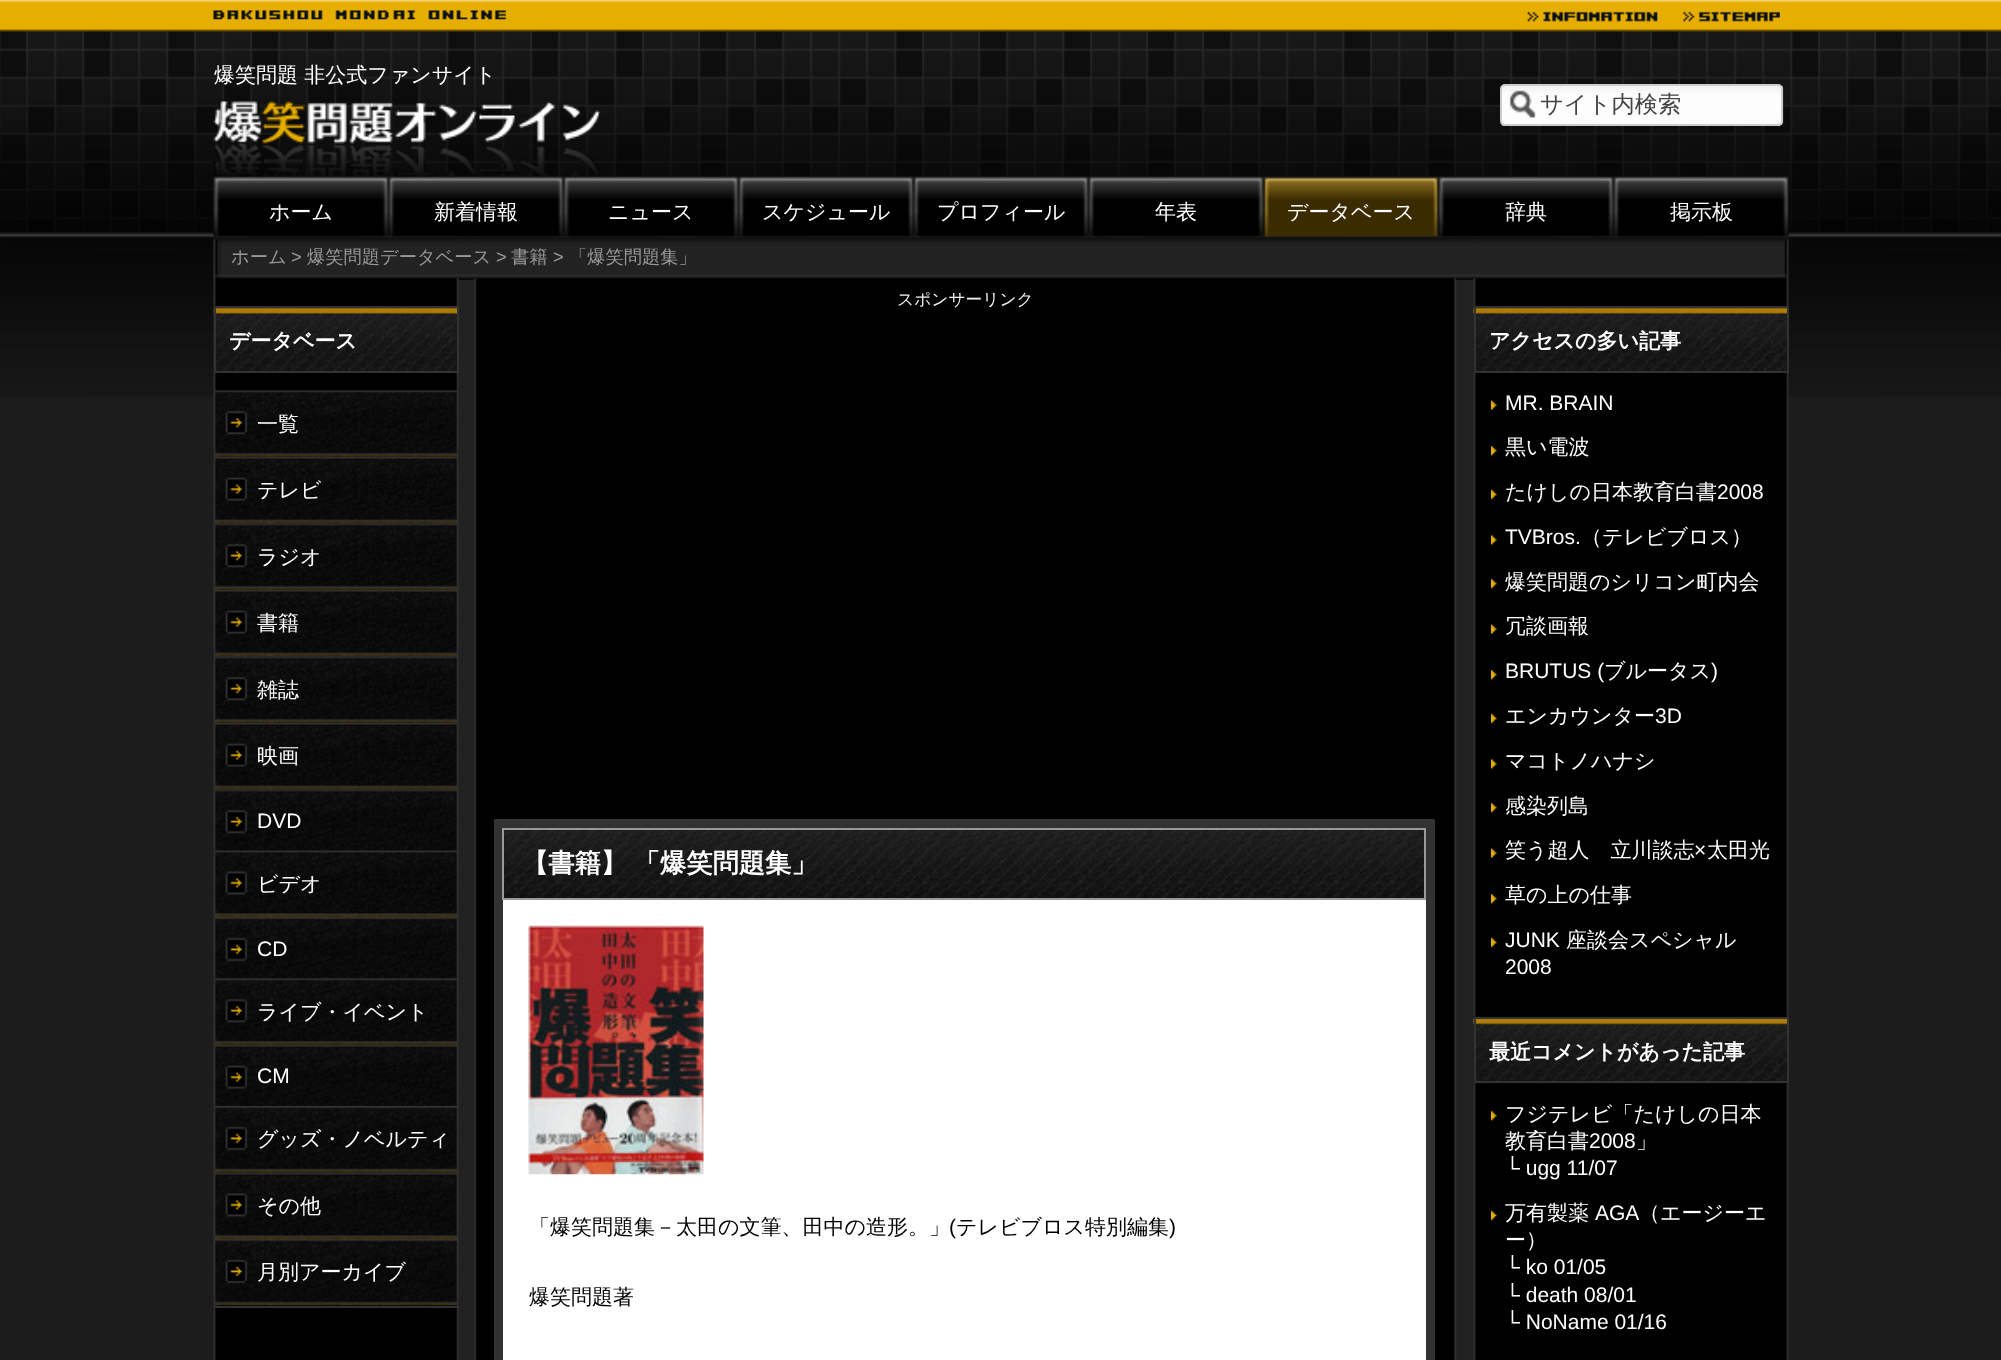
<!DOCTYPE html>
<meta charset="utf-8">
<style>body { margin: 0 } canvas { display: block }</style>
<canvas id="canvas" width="2001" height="1360"></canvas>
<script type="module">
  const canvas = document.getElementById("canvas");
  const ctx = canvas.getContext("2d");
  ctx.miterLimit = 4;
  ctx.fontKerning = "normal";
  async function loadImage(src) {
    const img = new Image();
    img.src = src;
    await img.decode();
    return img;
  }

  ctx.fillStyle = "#1c1c1c";
  ctx.fillRect(0, 0, 2001, 1360);
  ctx.drawImage(await loadImage("img1.png"), 0, 0, 2001, 397);
  ctx.drawImage(await loadImage("img2.png"), 213, 10, 293, 10);
  ctx.drawImage(await loadImage("img3.png"), 1527, 11, 131, 11);
  ctx.drawImage(await loadImage("img4.png"), 1683, 11, 97, 11);
  ctx.font = "500 21px WenQuanYi Zen Hei";
  ctx.fillStyle = "#ffffff";
  ctx.fillText("爆笑問題 非公式ファンサイト", 214, 82);
  ctx.drawImage(await loadImage("img5.png"), 213, 101, 388, 76);
  ctx.drawImage(await loadImage("img6.png"), 1501, 85, 283, 41);
  ctx.beginPath();
  ctx.roundRect(1501, 85, 281, 40, 4);
  ctx.strokeStyle = "#cccccc";
  ctx.lineWidth = 2;
  ctx.stroke();
  ctx.font = "500 23.25px WenQuanYi Zen Hei";
  ctx.fillStyle = "#444444";
  ctx.fillText("サイト内検索", 1540, 112);
  ctx.drawImage(await loadImage("img7.png"), 213, 176, 176, 61);
  ctx.font = "500 21px WenQuanYi Zen Hei";
  ctx.fillStyle = "#ffffff";
  ctx.fillText("ホーム", 269, 219);
  ctx.drawImage(await loadImage("img8.png"), 388, 176, 176, 61);
  ctx.fillText("新着情報", 434, 219);
  ctx.drawImage(await loadImage("img9.png"), 563, 176, 176, 61);
  ctx.fillText("ニュース", 608, 219);
  ctx.drawImage(await loadImage("img10.png"), 738, 176, 176, 61);
  ctx.fillText("スケジュール", 762, 219);
  ctx.drawImage(await loadImage("img11.png"), 913, 176, 176, 61);
  ctx.fillText("プロフィール", 937, 219);
  ctx.drawImage(await loadImage("img12.png"), 1088, 176, 176, 61);
  ctx.fillText("年表", 1155, 219);
  ctx.drawImage(await loadImage("img13.png"), 1263, 176, 176, 61);
  ctx.fillText("データベース", 1287, 219);
  ctx.drawImage(await loadImage("img14.png"), 1438, 176, 176, 61);
  ctx.fillText("辞典", 1505, 219);
  ctx.drawImage(await loadImage("img15.png"), 1613, 176, 176, 61);
  ctx.fillText("掲示板", 1670, 219);
  ctx.drawImage(await loadImage("img16.png"), 213, 238, 1576, 42);
  ctx.font = "500 18.25px WenQuanYi Zen Hei";
  ctx.fillStyle = "#999999";
  ctx.fillText("ホーム", 231, 263);
  ctx.font = "18.25px Liberation Sans";
  ctx.fillText(">", 291, 263);
  ctx.font = "500 18.25px WenQuanYi Zen Hei";
  ctx.fillText("爆笑問題データベース", 307, 263);
  ctx.font = "18.25px Liberation Sans";
  ctx.fillText(">", 496, 263);
  ctx.font = "500 18.25px WenQuanYi Zen Hei";
  ctx.fillText("書籍", 511, 263);
  ctx.font = "18.25px Liberation Sans";
  ctx.fillText(">", 553, 263);
  ctx.font = "500 18.25px WenQuanYi Zen Hei";
  ctx.fillText("「爆笑問題集」", 569, 263);
  ctx.drawImage(await loadImage("img17.png"), 213, 280, 1576, 1080);
  ctx.drawImage(await loadImage("img18.png"), 213, 306, 244, 67);
  ctx.strokeStyle = "#323232";
  ctx.strokeRect(215, 307, 243, 65);
  ctx.font = "bold 21px WenQuanYi Zen Hei";
  ctx.fillStyle = "#ffffff";
  ctx.fillText("データベース", 229, 348);
  ctx.fillStyle = "#323232";
  ctx.fillRect(214, 1306, 245, 2);
  ctx.drawImage(await loadImage("img19.png"), 215, 390, 243, 67);
  ctx.font = "500 21px WenQuanYi Zen Hei";
  ctx.fillStyle = "#ffffff";
  ctx.fillText("一覧", 257, 431);
  ctx.drawImage(await loadImage("img20.png"), 215, 456, 243, 68);
  ctx.fillText("テレビ", 257, 497);
  ctx.drawImage(await loadImage("img21.png"), 215, 523, 243, 67);
  ctx.fillText("ラジオ", 257, 564);
  ctx.drawImage(await loadImage("img20.png"), 215, 589, 243, 68);
  ctx.fillText("書籍", 257, 630);
  ctx.drawImage(await loadImage("img21.png"), 215, 656, 243, 67);
  ctx.fillText("雑誌", 257, 697);
  ctx.drawImage(await loadImage("img20.png"), 215, 722, 243, 68);
  ctx.fillText("映画", 257, 763);
  ctx.drawImage(await loadImage("img22.png"), 215, 789, 243, 62);
  ctx.font = "21px Liberation Sans";
  ctx.fillText("DVD", 257, 828);
  ctx.drawImage(await loadImage("img23.png"), 215, 850, 243, 67);
  ctx.font = "500 21px WenQuanYi Zen Hei";
  ctx.fillText("ビデオ", 257, 891);
  ctx.drawImage(await loadImage("img24.png"), 215, 917, 243, 62);
  ctx.font = "21px Liberation Sans";
  ctx.fillText("CD", 257, 956);
  ctx.drawImage(await loadImage("img25.png"), 215, 978, 243, 67);
  ctx.font = "500 21px WenQuanYi Zen Hei";
  ctx.fillText("ライブ・イベント", 257, 1019);
  ctx.drawImage(await loadImage("img26.png"), 215, 1044, 243, 62);
  ctx.font = "21px Liberation Sans";
  ctx.fillText("CM", 257, 1083);
  ctx.drawImage(await loadImage("img27.png"), 215, 1106, 243, 67);
  ctx.font = "500 21px WenQuanYi Zen Hei";
  ctx.fillText("グッズ・ノベルティ", 257, 1146);
  ctx.drawImage(await loadImage("img28.png"), 215, 1172, 243, 67);
  ctx.fillText("その他", 257, 1213);
  ctx.drawImage(await loadImage("img29.png"), 215, 1239, 243, 67);
  ctx.fillText("月別アーカイブ", 257, 1279);
  ctx.font = "500 16.75px WenQuanYi Zen Hei";
  ctx.fillStyle = "#efefef";
  ctx.fillText("スポンサーリンク", 897, 305);
  ctx.fillStyle = "#ffffff";
  ctx.fillRect(503, 900, 923, 460);
  ctx.lineWidth = 9;
  ctx.strokeRect(498.5, 823.5, 932, 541);
  ctx.drawImage(await loadImage("img30.png"), 504, 830, 920, 68);
  ctx.strokeStyle = "#999999";
  ctx.lineWidth = 2;
  ctx.strokeRect(503, 829, 922, 70);
  ctx.wordSpacing = "-1px";
  ctx.font = "bold 26.25px WenQuanYi Zen Hei";
  ctx.fillText("【書籍】 「爆笑問題集」", 522, 872);
  ctx.drawImage(await loadImage("img31.png"), 528, 925, 176, 250);
  ctx.wordSpacing = "0px";
  ctx.font = "500 21px WenQuanYi Zen Hei";
  ctx.fillStyle = "#000000";
  ctx.fillText("「爆笑問題集－太田の文筆、田中の造形。」", 529, 1234);
  ctx.font = "21px Liberation Sans";
  ctx.fillText("(", 949, 1234);
  ctx.font = "500 21px WenQuanYi Zen Hei";
  ctx.fillText("テレビブロス特別編集", 956, 1234);
  ctx.font = "21px Liberation Sans";
  ctx.fillText(")", 1169, 1234);
  ctx.font = "500 21px WenQuanYi Zen Hei";
  ctx.fillText("爆笑問題著", 529, 1304);
  ctx.drawImage(await loadImage("img32.png"), 1473, 306, 314, 67);
  ctx.strokeStyle = "#323232";
  ctx.strokeRect(1475, 307, 313, 65);
  ctx.font = "bold 21px WenQuanYi Zen Hei";
  ctx.fillStyle = "#ffffff";
  ctx.fillText("アクセスの多い記事", 1489, 348);
  ctx.drawImage(await loadImage("img33.png"), 1491, 400, 6, 10);
  ctx.font = "21px Liberation Sans";
  ctx.fillText("MR. BRAIN", 1505, 410);
  ctx.drawImage(await loadImage("img34.png"), 1491, 445, 6, 11);
  ctx.font = "500 21px WenQuanYi Zen Hei";
  ctx.fillText("黒い電波", 1505, 454);
  ctx.drawImage(await loadImage("img35.png"), 1491, 489, 6, 11);
  ctx.fillText("たけしの日本教育白書", 1505, 499);
  ctx.font = "21px Liberation Sans";
  ctx.fillText("2008", 1717, 499);
  ctx.drawImage(await loadImage("img36.png"), 1491, 535, 6, 10);
  ctx.fillText("TVBros.", 1505, 544);
  ctx.font = "500 21px WenQuanYi Zen Hei";
  ctx.fillText("（テレビブロス）", 1581, 544);
  ctx.drawImage(await loadImage("img34.png"), 1491, 578, 6, 11);
  ctx.fillText("爆笑問題のシリコン町内会", 1505, 589);
  ctx.drawImage(await loadImage("img33.png"), 1491, 624, 6, 10);
  ctx.fillText("冗談画報", 1505, 633);
  ctx.drawImage(await loadImage("img34.png"), 1491, 669, 6, 11);
  ctx.font = "21px Liberation Sans";
  ctx.fillText("BRUTUS (", 1505, 678);
  ctx.font = "500 21px WenQuanYi Zen Hei";
  ctx.fillText("ブルータス", 1604, 678);
  ctx.font = "21px Liberation Sans";
  ctx.fillText(")", 1711, 678);
  ctx.drawImage(await loadImage("img35.png"), 1491, 713, 6, 11);
  ctx.font = "500 21px WenQuanYi Zen Hei";
  ctx.fillText("エンカウンター", 1505, 723);
  ctx.font = "21px Liberation Sans";
  ctx.fillText("3D", 1655, 723);
  ctx.drawImage(await loadImage("img36.png"), 1491, 759, 6, 10);
  ctx.font = "500 21px WenQuanYi Zen Hei";
  ctx.fillText("マコトノハナシ", 1505, 768);
  ctx.drawImage(await loadImage("img34.png"), 1491, 802, 6, 11);
  ctx.fillText("感染列島", 1505, 813);
  ctx.drawImage(await loadImage("img33.png"), 1491, 848, 6, 10);
  ctx.fillText("笑う超人　立川談志", 1505, 857);
  ctx.font = "21px Liberation Sans";
  ctx.fillText("×", 1694, 857);
  ctx.font = "500 21px WenQuanYi Zen Hei";
  ctx.fillText("太田光", 1707, 857);
  ctx.drawImage(await loadImage("img34.png"), 1491, 893, 6, 11);
  ctx.fillText("草の上の仕事", 1505, 902);
  ctx.drawImage(await loadImage("img35.png"), 1491, 937, 6, 11);
  ctx.font = "21px Liberation Sans";
  ctx.fillText("JUNK", 1505, 947);
  ctx.font = "500 21px WenQuanYi Zen Hei";
  ctx.fillText("座談会スペシャル", 1566, 947);
  ctx.font = "21px Liberation Sans";
  ctx.fillText("2008", 1505, 974);
  ctx.drawImage(await loadImage("img37.png"), 1473, 1016, 316, 68);
  ctx.strokeRect(1475, 1018, 313, 64);
  ctx.font = "bold 21px WenQuanYi Zen Hei";
  ctx.fillText("最近コメントがあった記事", 1489, 1059);
  ctx.drawImage(await loadImage("img34.png"), 1491, 1110, 6, 11);
  ctx.font = "500 21px WenQuanYi Zen Hei";
  ctx.fillText("フジテレビ「たけしの日本", 1505, 1121);
  ctx.fillText("教育白書", 1505, 1148);
  ctx.font = "21px Liberation Sans";
  ctx.fillText("2008", 1589, 1148);
  ctx.font = "500 21px WenQuanYi Zen Hei";
  ctx.fillText("」", 1636, 1148);
  ctx.font = "21px Liberation Sans";
  ctx.fillText("└ ugg 11/07", 1505, 1175);
  ctx.drawImage(await loadImage("img35.png"), 1491, 1210, 6, 11);
  ctx.font = "500 21px WenQuanYi Zen Hei";
  ctx.fillText("万有製薬", 1505, 1220);
  ctx.font = "21px Liberation Sans";
  ctx.fillText("AGA", 1595, 1220);
  ctx.font = "500 21px WenQuanYi Zen Hei";
  ctx.fillText("（エージーエ", 1639, 1220);
  ctx.fillText("ー）", 1505, 1247);
  ctx.font = "21px Liberation Sans";
  ctx.fillText("└ ko 01/05", 1505, 1274);
  ctx.fillText("└ death 08/01", 1505, 1302);
  ctx.fillText("└ NoName 01/16", 1505, 1329);
</script>
